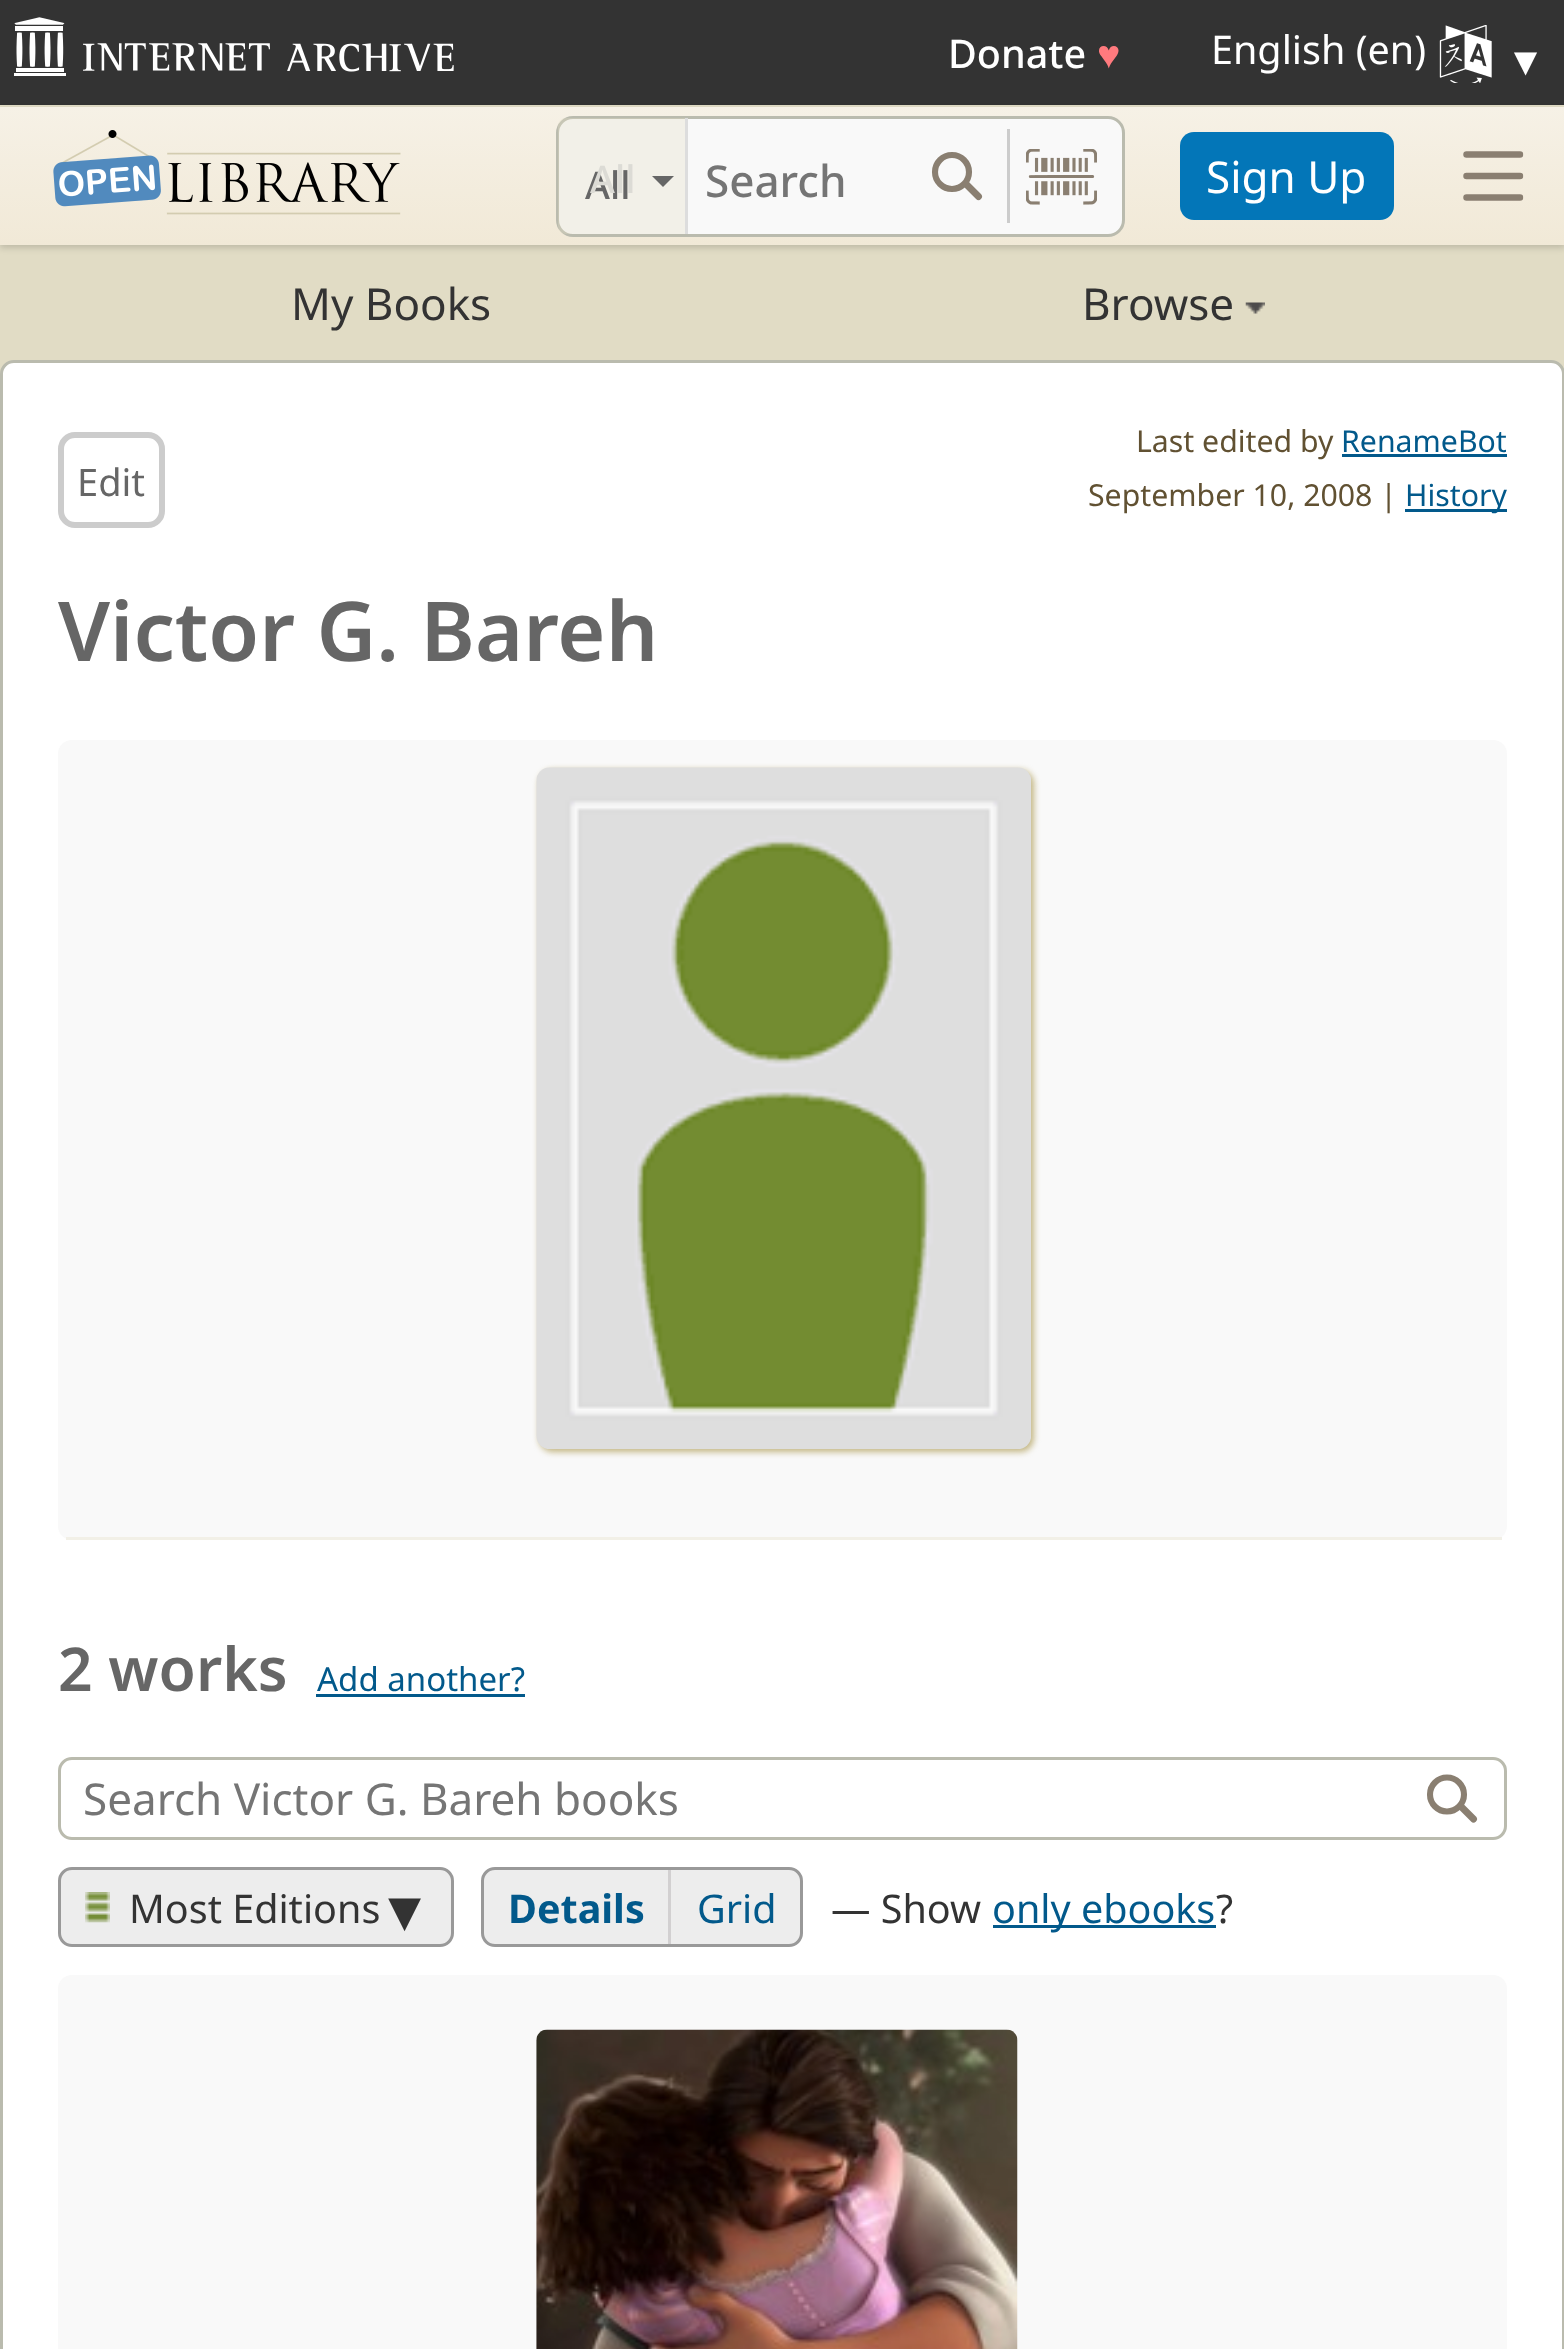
<!DOCTYPE html>
<meta charset="utf-8">
<style>body { margin: 0 } canvas { display: block }</style>
<canvas id="canvas" width="1564" height="2349"></canvas>
<script type="module">
  const canvas = document.getElementById("canvas");
  const ctx = canvas.getContext("2d");
  ctx.miterLimit = 4;
  ctx.fontKerning = "normal";
  async function loadImage(src) {
    const img = new Image();
    img.src = src;
    await img.decode();
    return img;
  }
  let gradient;

  ctx.fillStyle = "#e1dcc5";
  ctx.fillRect(0, 0, 1564, 2349);
  ctx.fillStyle = "#333333";
  ctx.fillRect(0, 0, 1564, 105);
  ctx.drawImage(await loadImage("img1.png"), 14, 17, 440, 59);
  ctx.font = "500 39.5px Noto Sans";
  ctx.fillStyle = "#ffffff";
  ctx.fillText("Donate", 948, 68);
  ctx.font = "39.5px Liberation Sans";
  ctx.fillStyle = "#ff7a7e";
  ctx.fillText("♥", 1097, 68);
  ctx.font = "39.5px Noto Sans";
  ctx.fillStyle = "#ffffff";
  ctx.fillText("English (en)", 1211, 64);
  ctx.drawImage(await loadImage("img2.png"), 1439, 25, 53, 58);
  ctx.font = "39.5px Liberation Sans";
  ctx.fillText("▼", 1506, 75);
  ctx.fillStyle = "rgba(0, 0, 0, 0.15)";
  ctx.filter = "blur(3px)";
  ctx.beginPath();
  ctx.rect(0, 110, 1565, 138);
  ctx.fill();
  ctx.filter = "none";
  gradient = ctx.createLinearGradient(782, 107, 782, 245);
  gradient.addColorStop(0, "#f6f1e6");
  gradient.addColorStop(1, "#f1e9d7");
  ctx.fillStyle = gradient;
  ctx.fillRect(0, 107, 1564, 138);
  ctx.drawImage(await loadImage("img3.png"), 53, 130, 348, 85);
  ctx.fillStyle = "#f9f9f9";
  ctx.beginPath();
  ctx.roundRect(557.5, 117.5, 566, 118, 15.5);
  ctx.fill();
  ctx.strokeStyle = "#babbae";
  ctx.lineWidth = 3;
  ctx.stroke();
  ctx.fillStyle = "rgba(226, 220, 197, 0.32)";
  ctx.beginPath();
  ctx.roundRect(558, 118, 130, 116, [8, 0, 0, 8]);
  ctx.fill();
  ctx.fillStyle = "#dddddd";
  ctx.fillRect(685, 118, 3, 116);
  ctx.font = "500 38px Noto Sans";
  ctx.fillStyle = "#666666";
  ctx.fillText("All", 585, 199);
  ctx.fillStyle = "#dcdbd5";
  ctx.fillText("All", 590, 193);
  ctx.fillStyle = "#666666";
  ctx.beginPath();
  ctx.moveTo(652, 176);
  ctx.lineTo(674, 176);
  ctx.lineTo(663, 187);
  ctx.closePath();
  ctx.fill();
  ctx.font = "500 44px Noto Sans";
  ctx.fillStyle = "#757575";
  ctx.fillText("Search", 705, 197);
  ctx.beginPath();
  ctx.arc(952, 172, 17, 0, Math.PI * 2);
  ctx.strokeStyle = "#8a7f71";
  ctx.lineWidth = 6.1;
  ctx.stroke();
  ctx.beginPath();
  ctx.moveTo(966, 184);
  ctx.lineTo(978.5, 196.5);
  ctx.lineWidth = 6.9;
  ctx.lineCap = "round";
  ctx.lineJoin = "round";
  ctx.stroke();
  ctx.fillStyle = "#cccccc";
  ctx.fillRect(1007, 129, 3, 94);
  ctx.drawImage(await loadImage("img4.png"), 1026, 149, 71, 56);
  ctx.fillStyle = "#0376b8";
  ctx.beginPath();
  ctx.roundRect(1180, 132, 214, 88, 14);
  ctx.fill();
  ctx.font = "44px Noto Sans";
  ctx.fillStyle = "#ffffff";
  ctx.fillText("Sign Up", 1206, 193);
  ctx.save();
  ctx.beginPath();
  ctx.moveTo(1463, 146.5);
  ctx.lineTo(1523.5, 146.5);
  ctx.lineTo(1523.5, 207);
  ctx.lineTo(1463, 207);
  ctx.closePath();
  ctx.clip();
  ctx.beginPath();
  ctx.moveTo(1466.5, 197.5);
  ctx.lineTo(1520, 197.5);
  ctx.moveTo(1466.5, 176);
  ctx.lineTo(1520, 176);
  ctx.moveTo(1466.5, 154.5);
  ctx.lineTo(1520, 154.5);
  ctx.lineWidth = 6.5;
  ctx.lineJoin = "miter";
  ctx.stroke();
  ctx.restore();
  ctx.fillStyle = "#333333";
  ctx.fillText("My Books", 291, 320);
  ctx.fillText("Browse", 1082, 320);
  ctx.drawImage(await loadImage("img5.png"), 1245, 302, 20, 12);
  ctx.fillStyle = "#ffffff";
  ctx.beginPath();
  ctx.roundRect(1.5, 361.5, 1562, 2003, 12.5);
  ctx.fill();
  ctx.strokeStyle = "#babbae";
  ctx.lineWidth = 3;
  ctx.lineJoin = "miter";
  ctx.stroke();
  ctx.beginPath();
  ctx.roundRect(61, 435, 101, 90, 14);
  ctx.strokeStyle = "#cccccc";
  ctx.lineWidth = 6;
  ctx.stroke();
  ctx.font = "38px Noto Sans";
  ctx.fillStyle = "#666666";
  ctx.fillText("Edit", 77, 496);
  ctx.font = "30.25px Noto Sans";
  ctx.fillStyle = "#615132";
  ctx.fillText("Last edited by", 1136, 452);
  ctx.fillStyle = "#02598b";
  ctx.fillText("RenameBot", 1341, 452);
  ctx.fillRect(1342, 454, 165, 3);
  ctx.fillStyle = "#615132";
  ctx.fillText("September 10, 2008 |", 1088, 506);
  ctx.fillStyle = "#02598b";
  ctx.fillRect(1405, 509, 102, 3);
  ctx.fillText("History", 1405, 506);
  ctx.font = "600 82.5px Noto Sans";
  ctx.fillStyle = "#666666";
  ctx.fillText("Victor G. Bareh", 58, 661);
  ctx.fillStyle = "#f9f9f9";
  ctx.beginPath();
  ctx.roundRect(58, 740, 1449, 800, 14);
  ctx.fill();
  ctx.fillStyle = "#f2f0e7";
  ctx.fillRect(66, 1537, 1436, 3);
  ctx.fillStyle = "#c3b683";
  ctx.filter = "blur(3px)";
  ctx.beginPath();
  ctx.roundRect(539, 770, 495, 682, 14);
  ctx.fill();
  ctx.filter = "none";
  ctx.drawImage(await loadImage("img6.png"), 536, 767, 495, 682);
  ctx.font = "600 60.5px Noto Sans";
  ctx.fillStyle = "#666666";
  ctx.fillText("2 works", 58, 1691);
  ctx.font = "33px Noto Sans";
  ctx.fillStyle = "#02598b";
  ctx.fillText("Add another?", 317, 1691);
  ctx.fillRect(316, 1694, 209, 3);
  ctx.beginPath();
  ctx.roundRect(59.5, 1758.5, 1446, 80, 12.5);
  ctx.strokeStyle = "#babbae";
  ctx.lineWidth = 3;
  ctx.stroke();
  ctx.font = "44px Noto Sans";
  ctx.fillStyle = "#757575";
  ctx.fillText("Search Victor G. Bareh books", 83, 1815);
  ctx.beginPath();
  ctx.arc(1447, 1794.5, 17, 0, Math.PI * 2);
  ctx.strokeStyle = "#8a7f71";
  ctx.lineWidth = 6.1;
  ctx.stroke();
  ctx.beginPath();
  ctx.moveTo(1461, 1806.5);
  ctx.lineTo(1473.5, 1819);
  ctx.lineWidth = 6.9;
  ctx.lineJoin = "round";
  ctx.stroke();
  ctx.fillStyle = "#ededed";
  ctx.beginPath();
  ctx.roundRect(59.5, 1868.5, 393, 77, 12.5);
  ctx.fill();
  ctx.strokeStyle = "#999999";
  ctx.lineWidth = 3;
  ctx.lineJoin = "miter";
  ctx.stroke();
  ctx.drawImage(await loadImage("img7.png"), 85, 1892, 25, 31);
  ctx.font = "39.5px Noto Sans";
  ctx.fillStyle = "#333333";
  ctx.fillText("Most Editions", 129, 1923);
  ctx.font = "66px DejaVu Sans";
  ctx.fillText("▾", 388, 1932);
  ctx.fillStyle = "#ededed";
  ctx.beginPath();
  ctx.roundRect(482.5, 1868.5, 319, 77, 12.5);
  ctx.fill();
  ctx.stroke();
  ctx.font = "bold 39.5px Noto Sans";
  ctx.fillStyle = "#02598b";
  ctx.fillText("Details", 508, 1923);
  ctx.fillStyle = "#d2d0d1";
  ctx.fillRect(668, 1870, 3, 74);
  ctx.font = "39.5px Noto Sans";
  ctx.fillStyle = "#02598b";
  ctx.fillText("Grid", 697, 1923);
  ctx.fillStyle = "#333333";
  ctx.fillText("— Show", 831, 1923);
  ctx.fillStyle = "#02598b";
  ctx.fillRect(993, 1925, 223, 3);
  ctx.fillText("only ebooks", 992, 1923);
  ctx.fillStyle = "#333333";
  ctx.fillText("?", 1216, 1923);
  ctx.fillStyle = "#f9f9f9";
  ctx.beginPath();
  ctx.roundRect(58, 1975, 1449, 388, 14);
  ctx.fill();
  ctx.drawImage(await loadImage("img8.png"), 536, 2029, 482, 320);
</script>
